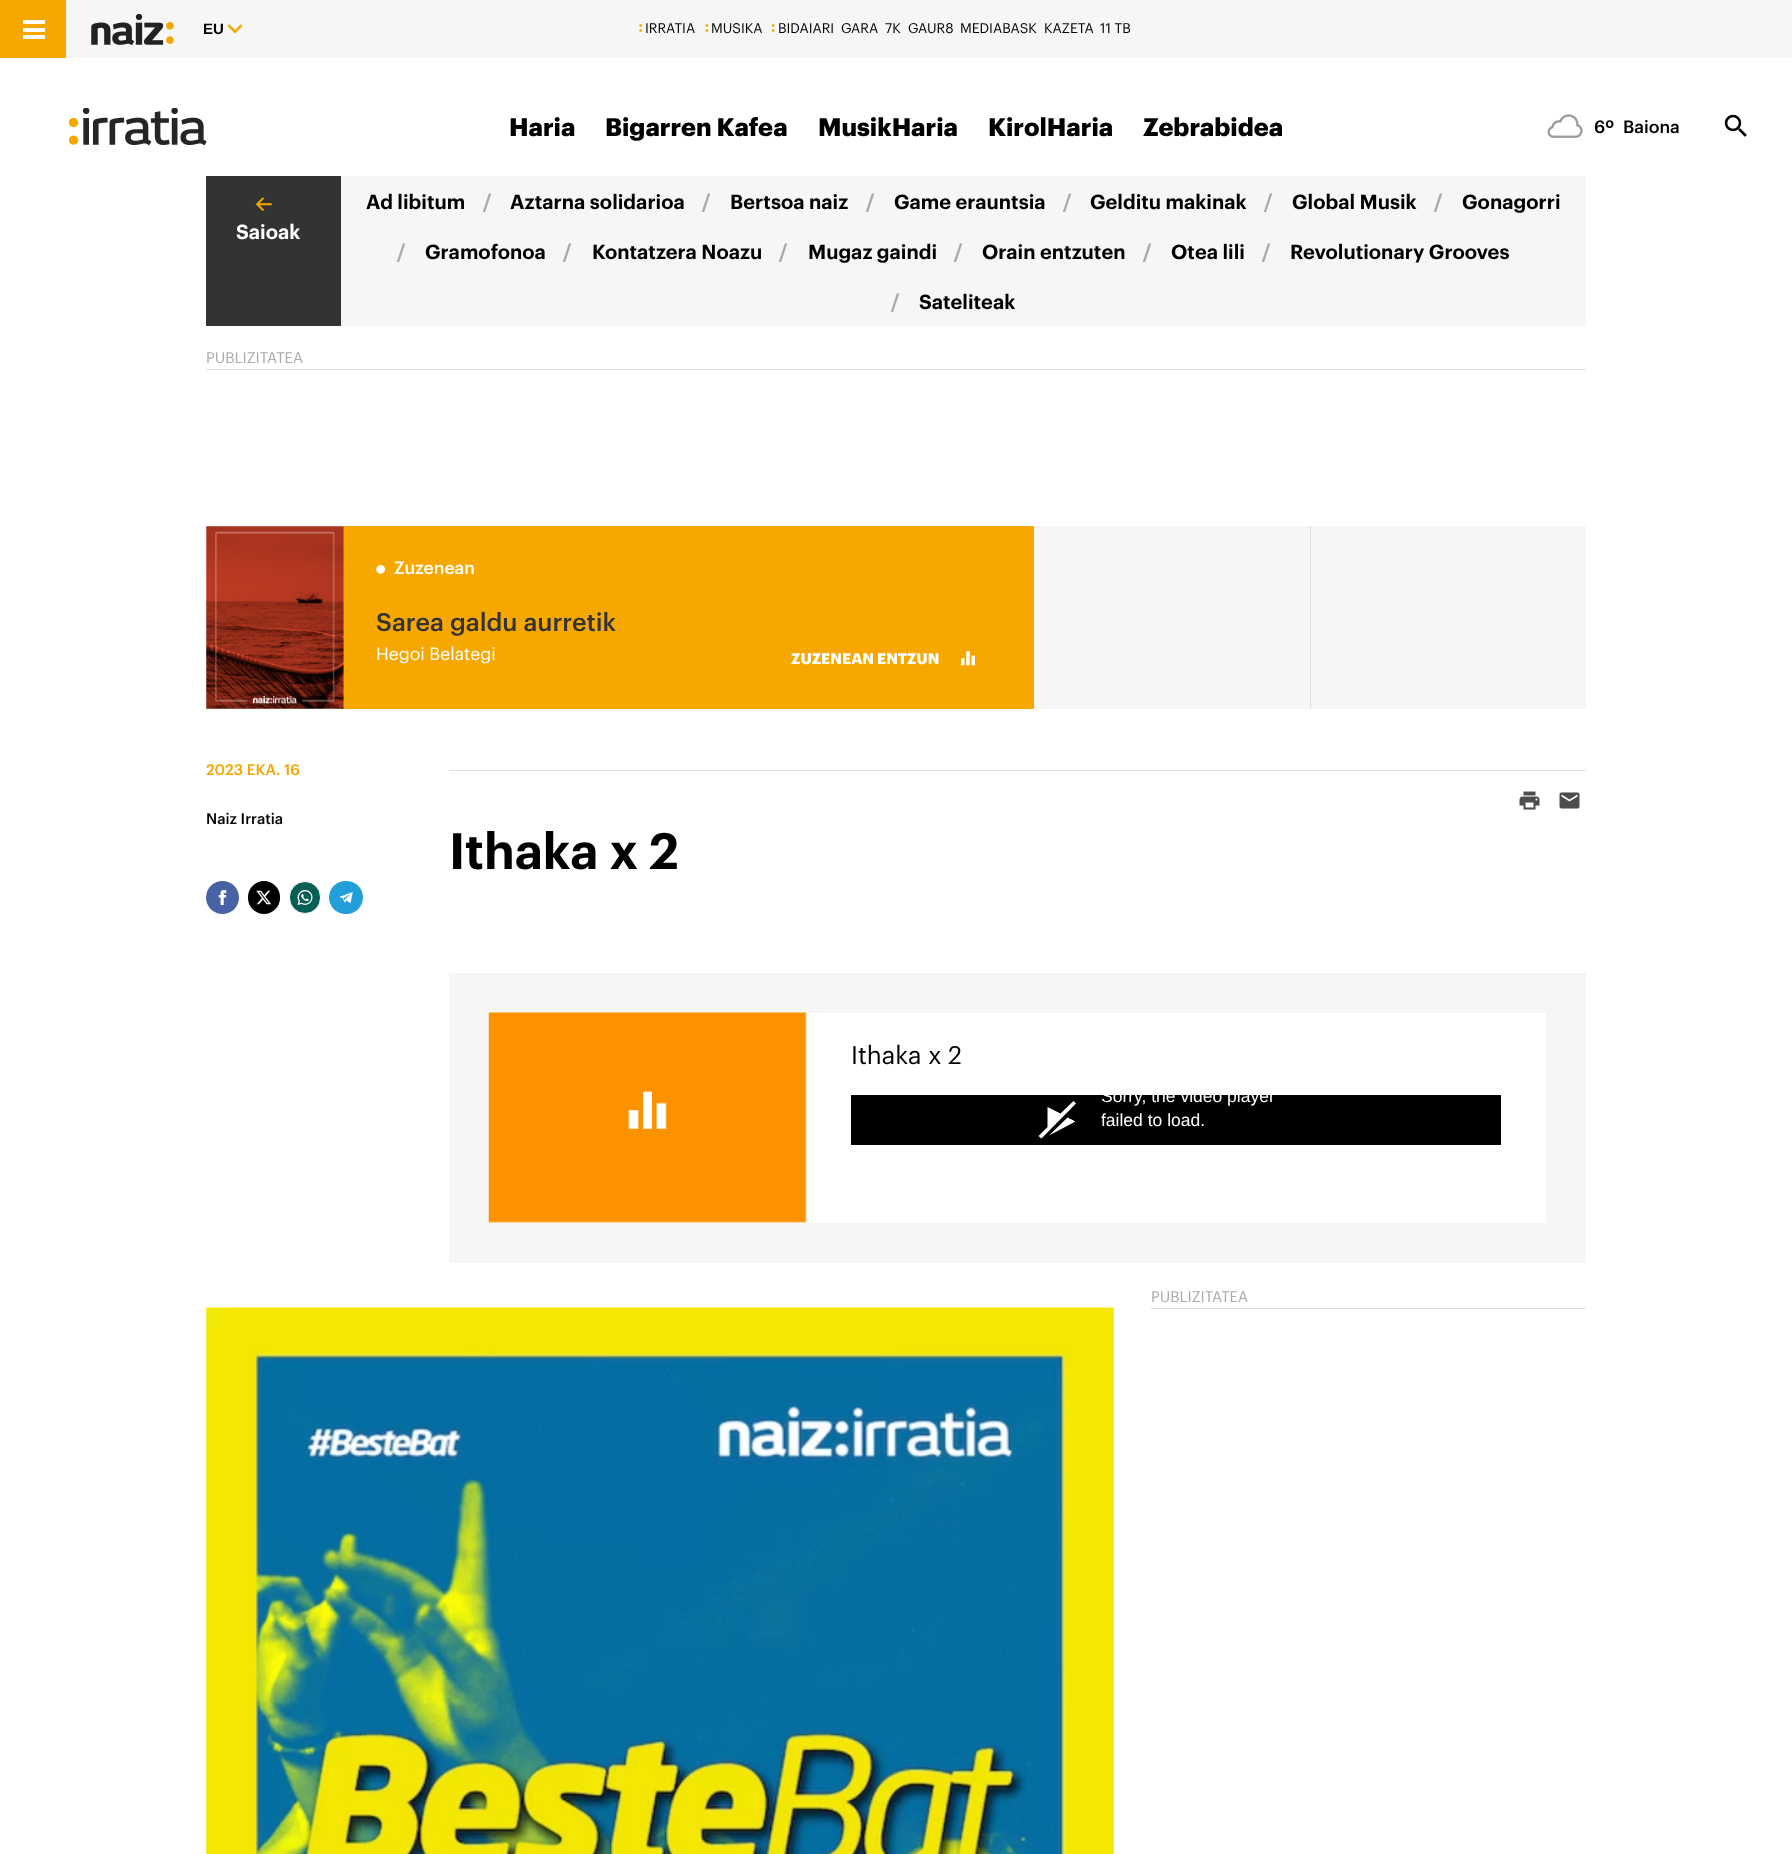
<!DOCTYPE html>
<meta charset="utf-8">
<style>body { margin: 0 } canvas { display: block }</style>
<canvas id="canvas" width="1792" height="1854"></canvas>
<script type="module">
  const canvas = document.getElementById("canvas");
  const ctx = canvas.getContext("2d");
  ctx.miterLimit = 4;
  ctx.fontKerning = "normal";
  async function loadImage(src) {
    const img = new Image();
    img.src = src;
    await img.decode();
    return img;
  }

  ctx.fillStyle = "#ffffff";
  ctx.fillRect(0, 0, 1792, 1854);
  ctx.fillStyle = "#f6f6f6";
  ctx.fillRect(66, 0, 1726, 58);
  ctx.fillStyle = "#f5a700";
  ctx.fillRect(0, 0, 66, 58);
  ctx.fillStyle = "#ffffff";
  ctx.fillRect(23, 28, 22, 4);
  ctx.fillRect(23, 20, 22, 4);
  ctx.fillRect(23, 35, 22, 4);
  ctx.drawImage(await loadImage("img1.png"), 91, 14, 73, 31);
  ctx.drawImage(await loadImage("img2.png"), 166, 22, 8, 22);
  ctx.drawImage(await loadImage("img3.png"), 228, 24, 15, 10);
  ctx.font = "bold 15px Liberation Sans";
  ctx.fillStyle = "#000000";
  ctx.fillText("EU", 203, 34);
  ctx.drawImage(await loadImage("img4.png"), 639, 24, 3, 8);
  ctx.font = "13.75px Graphik";
  ctx.fillText("IRRATIA", 645, 33);
  ctx.drawImage(await loadImage("img5.png"), 705, 24, 4, 8);
  ctx.fillText("MUSIKA", 711, 33);
  ctx.drawImage(await loadImage("img6.png"), 771, 24, 4, 8);
  ctx.fillText("BIDAIARI", 778, 33);
  ctx.fillText("GARA", 841, 33);
  ctx.fillText("7K", 885, 33);
  ctx.fillText("GAUR8", 908, 33);
  ctx.fillText("MEDIABASK", 960, 33);
  ctx.fillText("KAZETA", 1044, 33);
  ctx.fillText("11 TB", 1100, 33);
  ctx.drawImage(await loadImage("img7.png"), 69, 108, 138, 38);
  ctx.font = "bold 25px Graphik";
  ctx.fillText("Haria", 509, 136);
  ctx.fillText("Bigarren Kafea", 605, 136);
  ctx.fillText("MusikHaria", 818, 136);
  ctx.fillText("KirolHaria", 988, 136);
  ctx.fillText("Zebrabidea", 1143, 136);
  ctx.drawImage(await loadImage("img8.png"), 1547, 114, 36, 24);
  ctx.font = "500 17.5px Graphik";
  ctx.fillText("6º", 1594, 133);
  ctx.fillText("Baiona", 1623, 133);
  ctx.drawImage(await loadImage("img9.png"), 1724, 114, 23, 23);
  ctx.fillStyle = "#f6f6f6";
  ctx.fillRect(341, 176, 1245, 150);
  ctx.fillStyle = "#333333";
  ctx.fillRect(206, 176, 135, 150);
  ctx.drawImage(await loadImage("img10.png"), 255, 197, 17, 15);
  ctx.font = "600 20px Graphik";
  ctx.fillStyle = "#ffffff";
  ctx.fillText("Saioak", 236, 239);
  ctx.fillStyle = "#000000";
  ctx.fillText("Ad libitum", 366, 209);
  ctx.fillStyle = "#aaaaaa";
  ctx.fillText("/", 483, 209);
  ctx.fillStyle = "#000000";
  ctx.fillText("Aztarna solidarioa", 510, 209);
  ctx.fillStyle = "#aaaaaa";
  ctx.fillText("/", 702, 209);
  ctx.fillStyle = "#000000";
  ctx.fillText("Bertsoa naiz", 730, 209);
  ctx.fillStyle = "#aaaaaa";
  ctx.fillText("/", 866, 209);
  ctx.fillStyle = "#000000";
  ctx.fillText("Game erauntsia", 894, 209);
  ctx.fillStyle = "#aaaaaa";
  ctx.fillText("/", 1063, 209);
  ctx.fillStyle = "#000000";
  ctx.fillText("Gelditu makinak", 1090, 209);
  ctx.fillStyle = "#aaaaaa";
  ctx.fillText("/", 1264, 209);
  ctx.fillStyle = "#000000";
  ctx.fillText("Global Musik", 1292, 209);
  ctx.fillStyle = "#aaaaaa";
  ctx.fillText("/", 1434, 209);
  ctx.fillStyle = "#000000";
  ctx.fillText("Gonagorri", 1462, 209);
  ctx.fillStyle = "#aaaaaa";
  ctx.fillText("/", 397, 259);
  ctx.fillStyle = "#000000";
  ctx.fillText("Gramofonoa", 425, 259);
  ctx.fillStyle = "#aaaaaa";
  ctx.fillText("/", 563, 259);
  ctx.fillStyle = "#000000";
  ctx.fillText("Kontatzera Noazu", 592, 259);
  ctx.fillStyle = "#aaaaaa";
  ctx.fillText("/", 779, 259);
  ctx.fillStyle = "#000000";
  ctx.fillText("Mugaz gaindi", 808, 259);
  ctx.fillStyle = "#aaaaaa";
  ctx.fillText("/", 954, 259);
  ctx.fillStyle = "#000000";
  ctx.fillText("Orain entzuten", 982, 259);
  ctx.fillStyle = "#aaaaaa";
  ctx.fillText("/", 1143, 259);
  ctx.fillStyle = "#000000";
  ctx.fillText("Otea lili", 1171, 259);
  ctx.fillStyle = "#aaaaaa";
  ctx.fillText("/", 1262, 259);
  ctx.fillStyle = "#000000";
  ctx.fillText("Revolutionary Grooves", 1290, 259);
  ctx.fillStyle = "#aaaaaa";
  ctx.fillText("/", 891, 309);
  ctx.fillStyle = "#000000";
  ctx.fillText("Sateliteak", 919, 309);
  ctx.fillStyle = "#e3dddd";
  ctx.fillRect(206, 369, 1380, 1);
  ctx.font = "15px Graphik";
  ctx.fillStyle = "#aaaaaa";
  ctx.fillText("PUBLIZITATEA", 206, 363);
  ctx.drawImage(await loadImage("img11.png"), 206, 526, 138, 183);
  ctx.fillStyle = "#f6a800";
  ctx.fillRect(344, 526, 690, 183);
  ctx.drawImage(await loadImage("img12.png"), 376, 565, 9, 9);
  ctx.font = "500 17.5px Graphik";
  ctx.fillStyle = "#ffffff";
  ctx.fillText("Zuzenean", 394, 574);
  ctx.font = "500 25px Graphik";
  ctx.fillStyle = "#333333";
  ctx.fillText("Sarea galdu aurretik", 376, 631);
  ctx.font = "17.5px Graphik";
  ctx.fillStyle = "#ffffff";
  ctx.fillText("Hegoi Belategi", 376, 660);
  ctx.font = "bold 15px Graphik";
  ctx.fillText("ZUZENEAN ENTZUN", 791, 664);
  ctx.drawImage(await loadImage("img13.png"), 961, 651, 14, 15);
  ctx.fillStyle = "#f6f6f6";
  ctx.fillRect(1034, 526, 276, 183);
  ctx.fillRect(1311, 526, 275, 183);
  ctx.fillStyle = "#e3dddd";
  ctx.fillRect(1310, 526, 1, 183);
  ctx.font = "500 15px Graphik";
  ctx.fillStyle = "#f5a700";
  ctx.fillText("2023 EKA. 16", 206, 775);
  ctx.fillStyle = "#e3dddd";
  ctx.fillRect(449, 770, 1137, 1);
  ctx.drawImage(await loadImage("img14.png"), 1519, 791, 21, 19);
  ctx.drawImage(await loadImage("img15.png"), 1559, 792, 21, 17);
  ctx.fillStyle = "#000000";
  ctx.fillText("Naiz Irratia", 206, 824);
  ctx.fillStyle = "#4762a5";
  ctx.beginPath();
  ctx.arc(222.5, 897.5, 16.5, 0, Math.PI * 2);
  ctx.fill();
  ctx.drawImage(await loadImage("img16.png"), 218, 890, 9, 15);
  ctx.fillStyle = "#000000";
  ctx.beginPath();
  ctx.roundRect(248, 881, 32, 33, 16);
  ctx.fill();
  ctx.drawImage(await loadImage("img17.png"), 256, 890, 16, 15);
  ctx.fillStyle = "#075e54";
  ctx.beginPath();
  ctx.roundRect(289.5, 881.5, 31, 32, 15.5);
  ctx.fill();
  ctx.strokeStyle = "#ffffff";
  ctx.stroke();
  ctx.drawImage(await loadImage("img18.png"), 297, 890, 16, 15);
  ctx.fillStyle = "#229ed9";
  ctx.beginPath();
  ctx.roundRect(329, 881, 34, 33, 16.5);
  ctx.fill();
  ctx.drawImage(await loadImage("img19.png"), 339, 892, 14, 11);
  ctx.font = "600 50px Graphik";
  ctx.fillStyle = "#000000";
  ctx.fillText("Ithaka x 2", 449, 869);
  ctx.fillStyle = "#f6f6f6";
  ctx.fillRect(449, 973, 1137, 290);
  ctx.fillStyle = "#ffffff";
  ctx.fillRect(489, 1013, 1057, 210);
  ctx.drawImage(await loadImage("img20.png"), 488, 1012, 319, 211);
  ctx.font = "25px Graphik";
  ctx.fillStyle = "#000000";
  ctx.fillText("Ithaka x 2", 851, 1064);
  ctx.fillRect(851, 1095, 650, 50);
  ctx.fillStyle = "#ffffff";
  ctx.beginPath();
  ctx.moveTo(1074.5, 1122);
  ctx.lineTo(1049, 1135.5);
  ctx.lineTo(1067.5, 1117.5);
  ctx.bezierCurveTo(1074.5, 1121, 1076, 1121.5, 1074.5, 1122);
  ctx.closePath();
  ctx.moveTo(1073.5, 1101);
  ctx.lineTo(1060.5, 1113.5);
  ctx.lineTo(1047.5, 1107);
  ctx.lineTo(1047.5, 1127);
  ctx.lineTo(1038.5, 1136);
  ctx.lineTo(1041.5, 1138.5);
  ctx.lineTo(1076, 1103.5);
  ctx.closePath();
  ctx.fill();
  ctx.save();
  ctx.beginPath();
  ctx.rect(851, 1095, 650, 50);
  ctx.clip();
  ctx.font = "17.5px Liberation Sans";
  ctx.fillText("Sorry, the video player", 1101, 1102);
  ctx.restore();
  ctx.font = "17.5px Liberation Sans";
  ctx.fillText("failed to load.", 1101, 1126);
  ctx.fillStyle = "#e3dddd";
  ctx.fillRect(1151, 1308, 435, 1);
  ctx.font = "15px Graphik";
  ctx.fillStyle = "#aaaaaa";
  ctx.fillText("PUBLIZITATEA", 1151, 1302);
  ctx.drawImage(await loadImage("img21.png"), 206, 1307, 908, 547);
</script>
